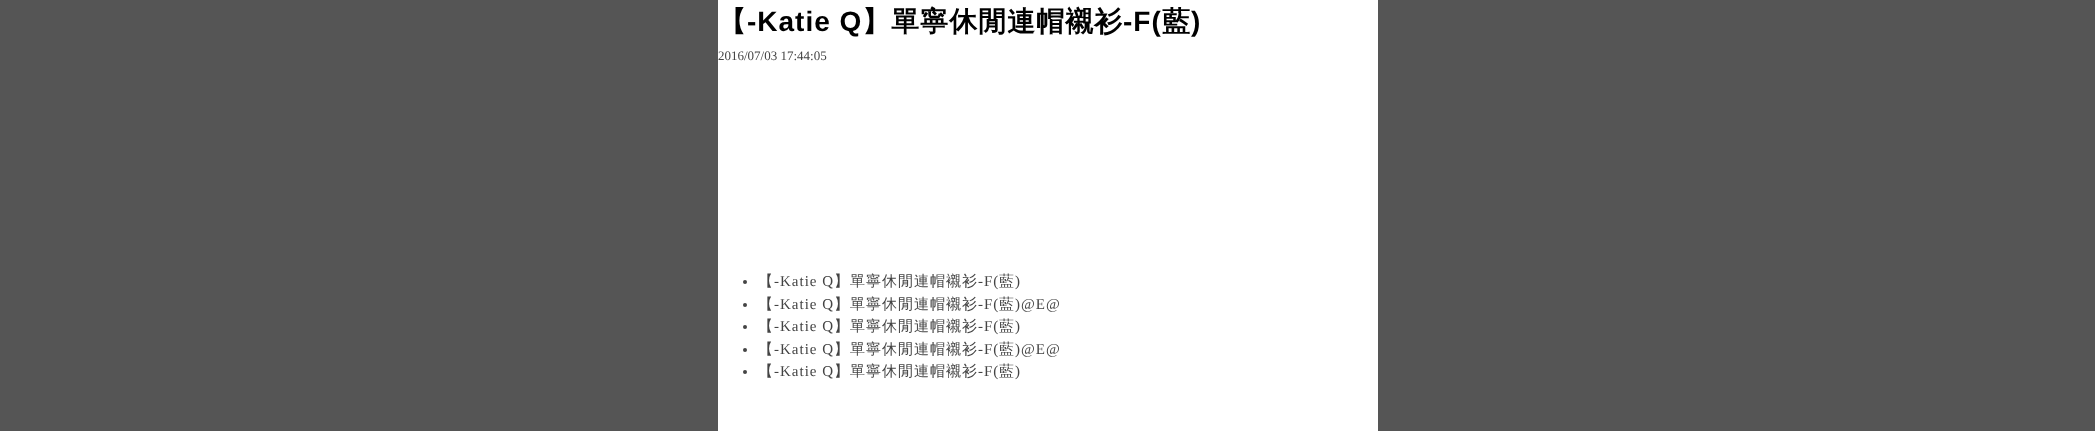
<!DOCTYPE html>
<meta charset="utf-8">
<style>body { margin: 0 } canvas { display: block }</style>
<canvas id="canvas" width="2095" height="431"></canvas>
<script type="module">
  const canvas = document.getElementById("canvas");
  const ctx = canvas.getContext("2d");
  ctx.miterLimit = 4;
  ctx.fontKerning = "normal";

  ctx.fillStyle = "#555555";
  ctx.fillRect(0, 0, 2095, 431);
  ctx.fillStyle = "#ffffff";
  ctx.fillRect(718, 0, 660, 431);
  ctx.letterSpacing = "1px";
  ctx.font = "bold 28px WenQuanYi Zen Hei";
  ctx.fillStyle = "#000000";
  ctx.fillText("【", 718, 31);
  ctx.font = "bold 28px Liberation Sans";
  ctx.fillText("-Katie Q", 747, 31);
  ctx.font = "bold 28px WenQuanYi Zen Hei";
  ctx.fillText("】單寧休閒連帽襯衫", 862, 31);
  ctx.font = "bold 28px Liberation Sans";
  ctx.fillText("-F(", 1123, 31);
  ctx.font = "bold 28px WenQuanYi Zen Hei";
  ctx.fillText("藍", 1162, 31);
  ctx.font = "bold 28px Liberation Sans";
  ctx.fillText(")", 1191, 31);
  ctx.letterSpacing = "0px";
  ctx.font = "13px Liberation Serif";
  ctx.fillStyle = "#444444";
  ctx.fillText("2016/07/03 17:44:05", 718, 60);
  ctx.beginPath();
  ctx.arc(745, 282, 2, 0, Math.PI * 2);
  ctx.fill();
  ctx.letterSpacing = "1px";
  ctx.font = "500 15px WenQuanYi Zen Hei";
  ctx.fillText("【", 758, 286);
  ctx.font = "15px Liberation Serif";
  ctx.fillText("-Katie Q", 774, 286);
  ctx.font = "500 15px WenQuanYi Zen Hei";
  ctx.fillText("】單寧休閒連帽襯衫", 834, 286);
  ctx.font = "15px Liberation Serif";
  ctx.fillText("-F(", 978, 286);
  ctx.font = "500 15px WenQuanYi Zen Hei";
  ctx.fillText("藍", 999, 286);
  ctx.font = "15px Liberation Serif";
  ctx.fillText(")", 1015, 286);
  ctx.beginPath();
  ctx.arc(745, 305, 2, 0, Math.PI * 2);
  ctx.fill();
  ctx.font = "500 15px WenQuanYi Zen Hei";
  ctx.fillText("【", 758, 309);
  ctx.font = "15px Liberation Serif";
  ctx.fillText("-Katie Q", 774, 309);
  ctx.font = "500 15px WenQuanYi Zen Hei";
  ctx.fillText("】單寧休閒連帽襯衫", 834, 309);
  ctx.font = "15px Liberation Serif";
  ctx.fillText("-F(", 978, 309);
  ctx.font = "500 15px WenQuanYi Zen Hei";
  ctx.fillText("藍", 999, 309);
  ctx.font = "15px Liberation Serif";
  ctx.fillText(")@E@", 1015, 309);
  ctx.beginPath();
  ctx.arc(745, 327, 2, 0, Math.PI * 2);
  ctx.fill();
  ctx.font = "500 15px WenQuanYi Zen Hei";
  ctx.fillText("【", 758, 331);
  ctx.font = "15px Liberation Serif";
  ctx.fillText("-Katie Q", 774, 331);
  ctx.font = "500 15px WenQuanYi Zen Hei";
  ctx.fillText("】單寧休閒連帽襯衫", 834, 331);
  ctx.font = "15px Liberation Serif";
  ctx.fillText("-F(", 978, 331);
  ctx.font = "500 15px WenQuanYi Zen Hei";
  ctx.fillText("藍", 999, 331);
  ctx.font = "15px Liberation Serif";
  ctx.fillText(")", 1015, 331);
  ctx.beginPath();
  ctx.arc(745, 350, 2, 0, Math.PI * 2);
  ctx.fill();
  ctx.font = "500 15px WenQuanYi Zen Hei";
  ctx.fillText("【", 758, 354);
  ctx.font = "15px Liberation Serif";
  ctx.fillText("-Katie Q", 774, 354);
  ctx.font = "500 15px WenQuanYi Zen Hei";
  ctx.fillText("】單寧休閒連帽襯衫", 834, 354);
  ctx.font = "15px Liberation Serif";
  ctx.fillText("-F(", 978, 354);
  ctx.font = "500 15px WenQuanYi Zen Hei";
  ctx.fillText("藍", 999, 354);
  ctx.font = "15px Liberation Serif";
  ctx.fillText(")@E@", 1015, 354);
  ctx.beginPath();
  ctx.arc(745, 372, 2, 0, Math.PI * 2);
  ctx.fill();
  ctx.font = "500 15px WenQuanYi Zen Hei";
  ctx.fillText("【", 758, 376);
  ctx.font = "15px Liberation Serif";
  ctx.fillText("-Katie Q", 774, 376);
  ctx.font = "500 15px WenQuanYi Zen Hei";
  ctx.fillText("】單寧休閒連帽襯衫", 834, 376);
  ctx.font = "15px Liberation Serif";
  ctx.fillText("-F(", 978, 376);
  ctx.font = "500 15px WenQuanYi Zen Hei";
  ctx.fillText("藍", 999, 376);
  ctx.font = "15px Liberation Serif";
  ctx.fillText(")", 1015, 376);
</script>
